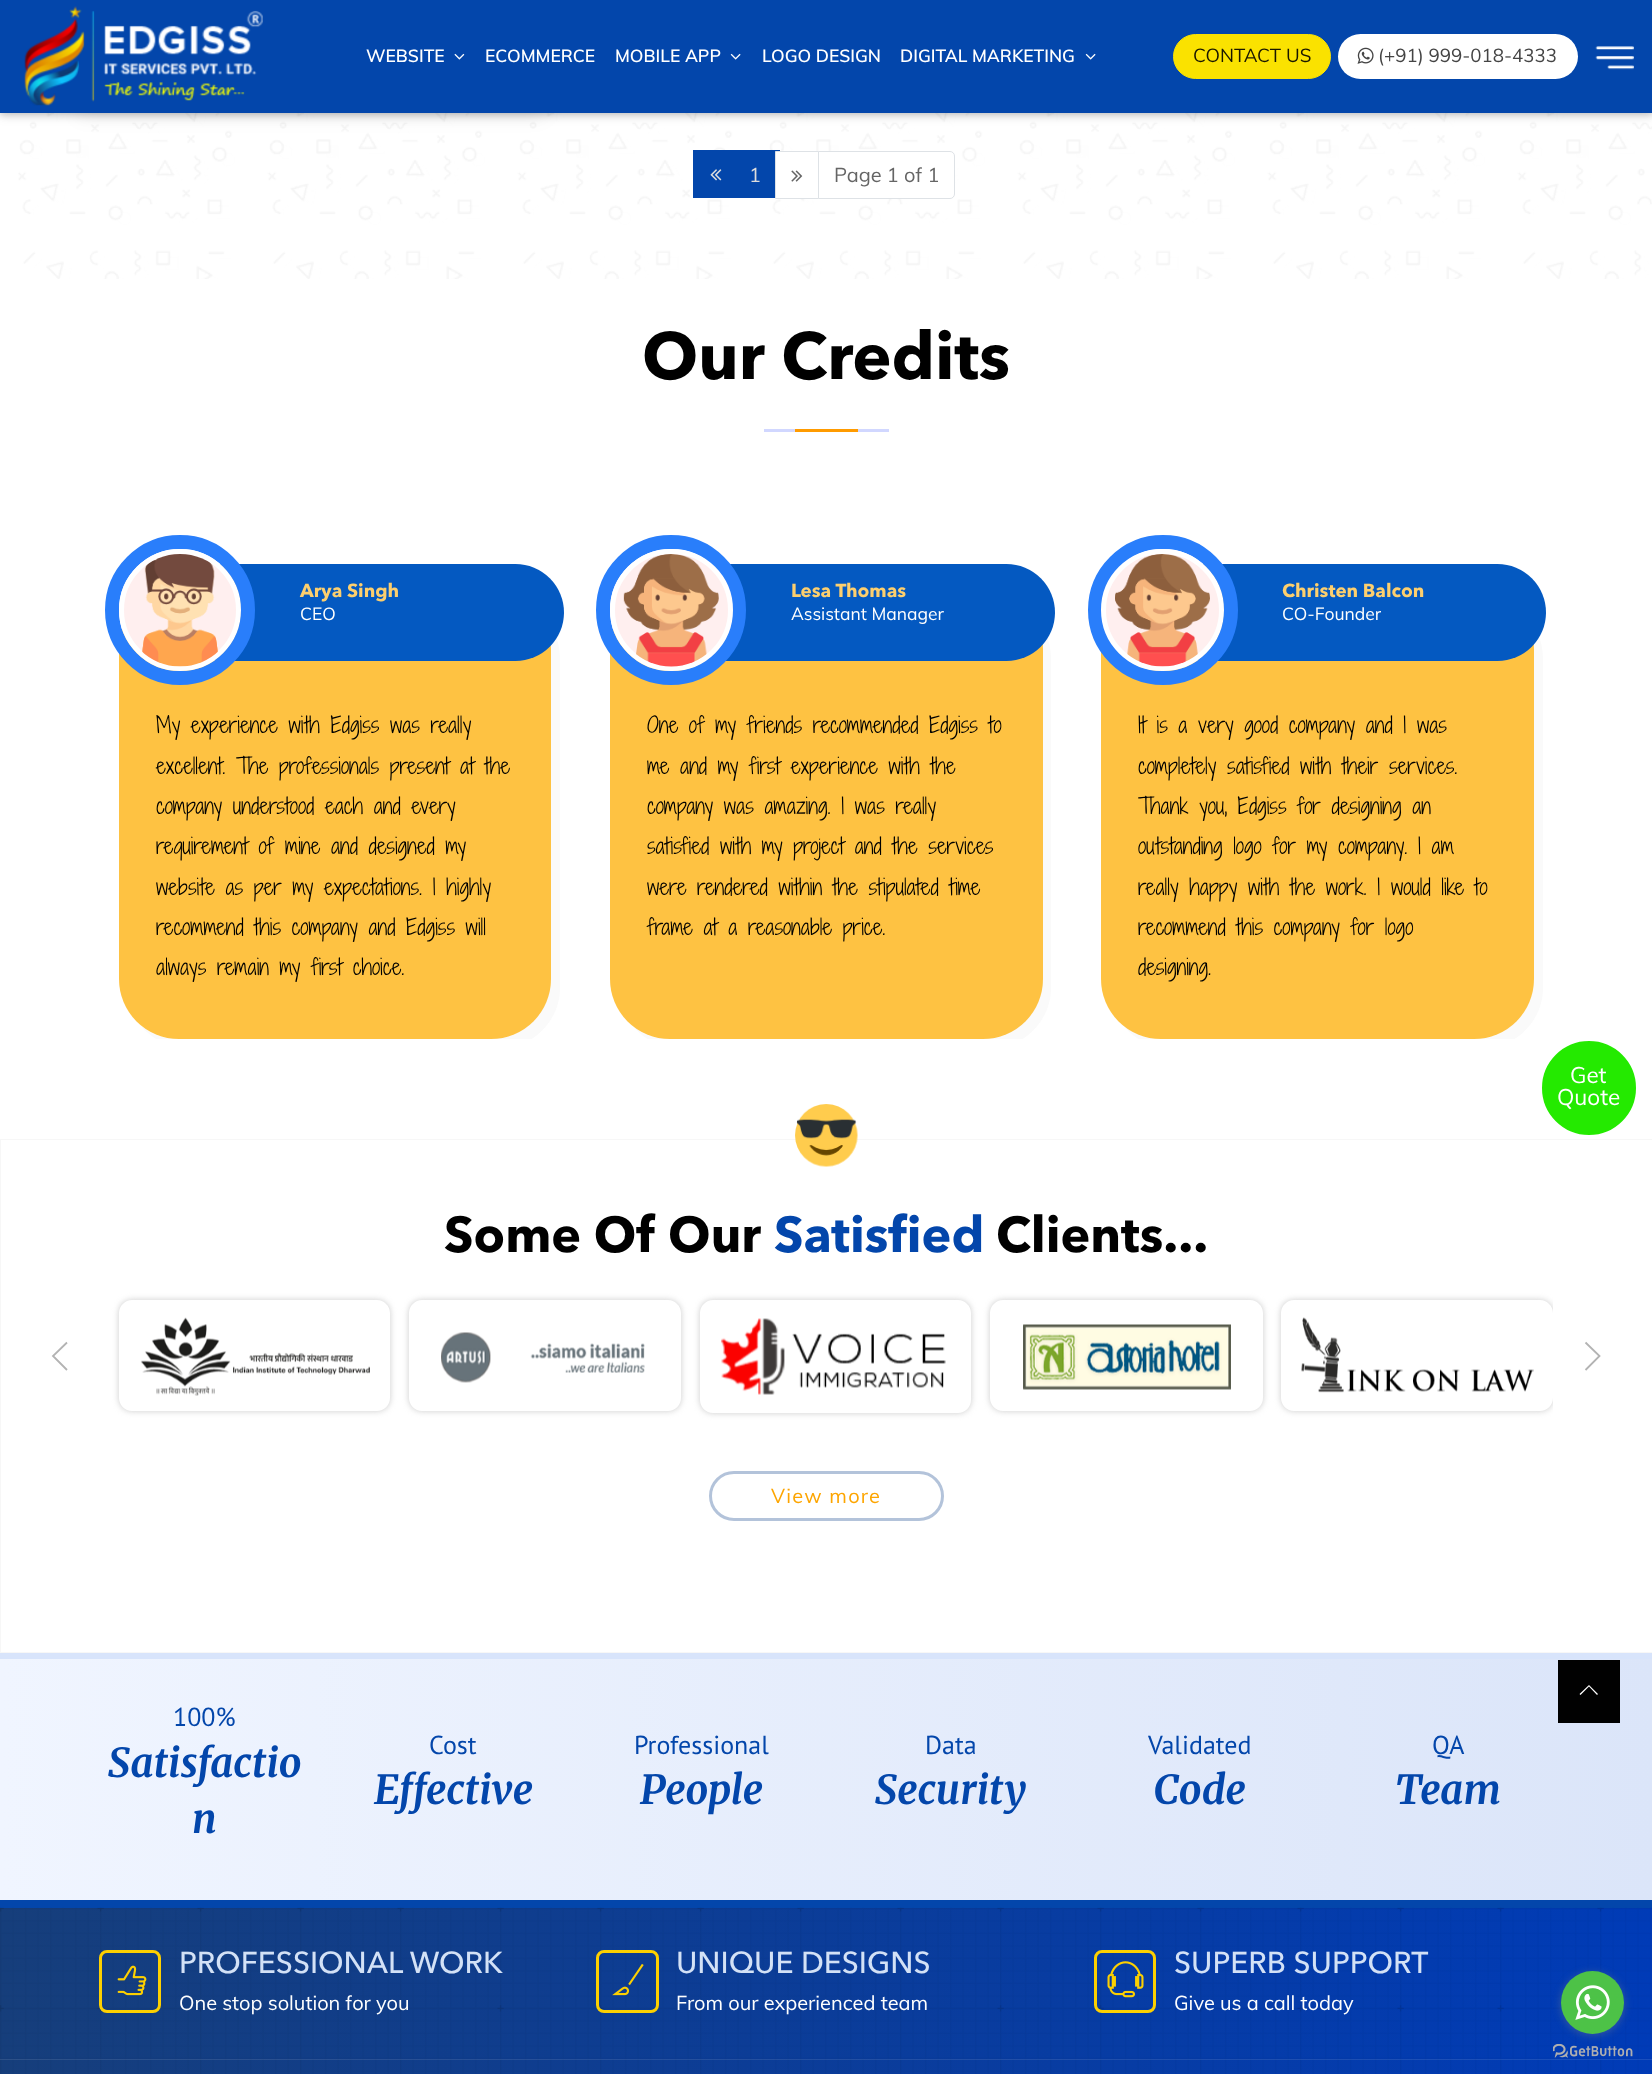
<!DOCTYPE html>
<meta charset="utf-8">
<style>body { margin: 0 } canvas { display: block }</style>
<canvas id="canvas" width="1652" height="2074"></canvas>
<script type="module">
  const canvas = document.getElementById("canvas");
  const ctx = canvas.getContext("2d");
  ctx.miterLimit = 4;
  ctx.fontKerning = "normal";
  async function loadImage(src) {
    const img = new Image();
    img.src = src;
    await img.decode();
    return img;
  }
  let gradient;

  ctx.fillStyle = "#ffffff";
  ctx.fillRect(0, 0, 1652, 2074);
  ctx.drawImage(await loadImage("img6.png"), 18, 113, 1634, 166);
  ctx.fillStyle = "rgba(0, 0, 0, 0.12)";
  ctx.filter = "blur(6px)";
  ctx.beginPath();
  ctx.rect(0, 3, 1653, 112);
  ctx.fill();
  ctx.filter = "none";
  ctx.fillStyle = "rgba(0, 0, 0, 0.16)";
  ctx.filter = "blur(3px)";
  ctx.beginPath();
  ctx.rect(0, 3, 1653, 112);
  ctx.fill();
  ctx.filter = "none";
  ctx.fillStyle = "rgba(0, 0, 0, 0.08)";
  ctx.filter = "blur(9.5px)";
  ctx.beginPath();
  ctx.rect(79, -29, 465, 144);
  ctx.fill();
  ctx.filter = "none";
  ctx.fillStyle = "#0346ab";
  ctx.fillRect(0, 0, 1652, 113);
  ctx.drawImage(await loadImage("img1.png"), 24, 6, 239, 100);
  ctx.font = "600 17.5px Muli";
  ctx.fillStyle = "#ffffff";
  ctx.fillText("WEBSITE", 366, 62);
  ctx.drawImage(await loadImage("img2.png"), 454, 53, 11, 7);
  ctx.fillText("ECOMMERCE", 485, 62);
  ctx.fillText("MOBILE APP", 615, 62);
  ctx.drawImage(await loadImage("img3.png"), 730, 53, 11, 7);
  ctx.fillText("LOGO DESIGN", 762, 62);
  ctx.fillText("DIGITAL MARKETING", 900, 62);
  ctx.drawImage(await loadImage("img3.png"), 1085, 53, 11, 7);
  ctx.fillStyle = "#fae200";
  ctx.beginPath();
  ctx.roundRect(1173.5, 34.5, 157, 44, 22);
  ctx.fill();
  ctx.strokeStyle = "#fae200";
  ctx.stroke();
  ctx.font = "18.75px Muli";
  ctx.fillStyle = "#191700";
  ctx.fillText("CONTACT US", 1193, 62);
  ctx.fillStyle = "#ffffff";
  ctx.beginPath();
  ctx.roundRect(1338, 34, 240, 45, 22.5);
  ctx.fill();
  ctx.drawImage(await loadImage("img4.png"), 1357, 47, 17, 17);
  ctx.fillStyle = "#444444";
  ctx.fillText("(+91) 999-018-4333", 1378, 62);
  ctx.drawImage(await loadImage("img5.png"), 1595, 46, 39, 24);
  ctx.fillStyle = "#0346ab";
  ctx.fillRect(693, 150, 87, 48);
  ctx.drawImage(await loadImage("img7.png"), 710, 169, 12, 12);
  ctx.fillStyle = "#ffffff";
  ctx.beginPath();
  ctx.rect(775.5, 151.5, 43, 47);
  ctx.fill();
  ctx.strokeStyle = "#dee2e6";
  ctx.stroke();
  ctx.drawImage(await loadImage("img8.png"), 791, 170, 12, 12);
  ctx.font = "20px Muli";
  ctx.fillStyle = "#dddddd";
  ctx.fillText("1", 749, 182);
  ctx.fillStyle = "#ffffff";
  ctx.beginPath();
  ctx.roundRect(818.5, 151.5, 136, 47, [0, 4.5, 4.5, 0]);
  ctx.fill();
  ctx.stroke();
  ctx.fillStyle = "#656565";
  ctx.fillText("Page 1 of 1", 834, 182);
  ctx.font = "bold 66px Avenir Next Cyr";
  ctx.fillStyle = "#000000";
  ctx.fillText("Our Credits", 642, 379);
  ctx.fillStyle = "#d1d7ff";
  ctx.fillRect(764, 429, 125, 3);
  ctx.fillStyle = "#ff9b00";
  ctx.fillRect(795, 429, 63, 3);
  ctx.save();
  ctx.beginPath();
  ctx.rect(99, 519, 1455, 520);
  ctx.clip();
  ctx.fillStyle = "#fafafa";
  ctx.beginPath();
  ctx.moveTo(141, 1026);
  ctx.bezierCurveTo(152, 1039, 169, 1048, 188, 1048);
  ctx.lineTo(500, 1048);
  ctx.bezierCurveTo(533, 1048, 560, 1021, 560, 988);
  ctx.lineTo(560, 658);
  ctx.bezierCurveTo(560, 640, 552, 623, 539, 612);
  ctx.bezierCurveTo(547, 622, 551, 635, 551, 649);
  ctx.lineTo(551, 979);
  ctx.bezierCurveTo(551, 1012, 524, 1039, 491, 1039);
  ctx.lineTo(179, 1039);
  ctx.bezierCurveTo(165, 1039, 151, 1034, 141, 1026);
  ctx.closePath();
  ctx.fill();
  ctx.restore();
  ctx.fillStyle = "#fec242";
  ctx.beginPath();
  ctx.roundRect(119, 589, 432, 450, 60);
  ctx.fill();
  ctx.fillStyle = "#0459c1";
  ctx.beginPath();
  ctx.roundRect(175, 564, 389, 97, 48.5);
  ctx.fill();
  ctx.beginPath();
  ctx.arc(180, 610, 68, 0, Math.PI * 2);
  ctx.strokeStyle = "#297efb";
  ctx.lineWidth = 14;
  ctx.stroke();
  ctx.fillStyle = "#ffefef";
  ctx.beginPath();
  ctx.arc(180, 610, 58.5, 0, Math.PI * 2);
  ctx.fill();
  ctx.strokeStyle = "#ffffff";
  ctx.lineWidth = 5;
  ctx.stroke();
  ctx.drawImage(await loadImage("img9.png"), 142, 554, 76, 113);
  ctx.font = "bold 18.75px Avenir Next Cyr";
  ctx.fillStyle = "#fdcf6e";
  ctx.fillText("Arya Singh", 300, 597);
  ctx.font = "17.5px Muli";
  ctx.fillStyle = "#ffffff";
  ctx.fillText("CEO", 300, 620);
  ctx.font = "300 21.25px Shadows Into Light Two";
  ctx.fillStyle = "#000000";
  ctx.fillText("My experience with Edgiss was really", 156, 733);
  ctx.fillText("excellent. The professionals present at the", 156, 774);
  ctx.fillText("company understood each and every", 156, 814);
  ctx.fillText("requirement of mine and designed my", 156, 854);
  ctx.fillText("website as per my expectations. I highly", 156, 895);
  ctx.fillText("recommend this company and Edgiss will", 156, 935);
  ctx.fillText("always remain my first choice.", 156, 975);
  ctx.save();
  ctx.beginPath();
  ctx.rect(99, 519, 1455, 520);
  ctx.clip();
  ctx.fillStyle = "#fafafa";
  ctx.beginPath();
  ctx.moveTo(632, 1025);
  ctx.bezierCurveTo(643, 1039, 660, 1048, 679, 1048);
  ctx.lineTo(991, 1048);
  ctx.bezierCurveTo(1024, 1048, 1051, 1021, 1051, 988);
  ctx.lineTo(1051, 658);
  ctx.bezierCurveTo(1051, 640, 1043, 624, 1031, 613);
  ctx.bezierCurveTo(1038, 623, 1042, 635, 1042, 649);
  ctx.lineTo(1042, 979);
  ctx.bezierCurveTo(1042, 1012, 1016, 1039, 982, 1039);
  ctx.lineTo(670, 1039);
  ctx.bezierCurveTo(655, 1039, 642, 1034, 632, 1025);
  ctx.closePath();
  ctx.fill();
  ctx.restore();
  ctx.fillStyle = "#fec242";
  ctx.beginPath();
  ctx.roundRect(610, 589, 433, 450, 60);
  ctx.fill();
  ctx.fillStyle = "#0459c1";
  ctx.beginPath();
  ctx.roundRect(666, 564, 389, 97, 48.5);
  ctx.fill();
  ctx.beginPath();
  ctx.arc(671, 610, 68, 0, Math.PI * 2);
  ctx.strokeStyle = "#297efb";
  ctx.lineWidth = 14;
  ctx.stroke();
  ctx.fillStyle = "#ffefef";
  ctx.beginPath();
  ctx.roundRect(612.5, 551.5, 118, 117, 58.5);
  ctx.fill();
  ctx.strokeStyle = "#ffffff";
  ctx.lineWidth = 5;
  ctx.stroke();
  ctx.drawImage(await loadImage("img10.png"), 623, 554, 96, 113);
  ctx.font = "bold 18.75px Avenir Next Cyr";
  ctx.fillStyle = "#fdcf6e";
  ctx.fillText("Lesa Thomas", 791, 597);
  ctx.font = "17.5px Muli";
  ctx.fillStyle = "#ffffff";
  ctx.fillText("Assistant Manager", 791, 620);
  ctx.font = "300 21.25px Shadows Into Light Two";
  ctx.fillStyle = "#000000";
  ctx.fillText("One of my friends recommended Edgiss to", 647, 733);
  ctx.fillText("me and my first experience with the", 647, 774);
  ctx.fillText("company was amazing. I was really", 647, 814);
  ctx.fillText("satisfied with my project and the services", 647, 854);
  ctx.fillText("were rendered within the stipulated time", 647, 895);
  ctx.fillText("frame at a reasonable price.", 647, 935);
  ctx.save();
  ctx.beginPath();
  ctx.rect(99, 519, 1455, 520);
  ctx.clip();
  ctx.fillStyle = "#fafafa";
  ctx.beginPath();
  ctx.moveTo(1122, 1024);
  ctx.bezierCurveTo(1133, 1039, 1151, 1048, 1170, 1048);
  ctx.lineTo(1483, 1048);
  ctx.bezierCurveTo(1516, 1048, 1543, 1021, 1543, 988);
  ctx.lineTo(1543, 658);
  ctx.bezierCurveTo(1543, 639, 1534, 622, 1521, 611);
  ctx.bezierCurveTo(1529, 621, 1534, 635, 1534, 649);
  ctx.lineTo(1534, 979);
  ctx.bezierCurveTo(1534, 1012, 1507, 1039, 1474, 1039);
  ctx.lineTo(1161, 1039);
  ctx.bezierCurveTo(1146, 1039, 1133, 1033, 1122, 1024);
  ctx.closePath();
  ctx.fill();
  ctx.restore();
  ctx.fillStyle = "#fec242";
  ctx.beginPath();
  ctx.roundRect(1101, 589, 433, 450, 60);
  ctx.fill();
  ctx.fillStyle = "#0459c1";
  ctx.beginPath();
  ctx.roundRect(1158, 564, 388, 97, 48.5);
  ctx.fill();
  ctx.beginPath();
  ctx.arc(1163, 610, 68, 0, Math.PI * 2);
  ctx.strokeStyle = "#297efb";
  ctx.lineWidth = 14;
  ctx.stroke();
  ctx.fillStyle = "#ffefef";
  ctx.beginPath();
  ctx.roundRect(1103.5, 551.5, 118, 117, 58.5);
  ctx.fill();
  ctx.strokeStyle = "#ffffff";
  ctx.lineWidth = 5;
  ctx.stroke();
  ctx.drawImage(await loadImage("img11.png"), 1115, 554, 95, 113);
  ctx.font = "bold 18.75px Avenir Next Cyr";
  ctx.fillStyle = "#fdcf6e";
  ctx.fillText("Christen Balcon", 1282, 597);
  ctx.font = "17.5px Muli";
  ctx.fillStyle = "#ffffff";
  ctx.fillText("CO-Founder", 1282, 620);
  ctx.font = "300 21.25px Shadows Into Light Two";
  ctx.fillStyle = "#000000";
  ctx.fillText("It is a very good company and I was", 1138, 733);
  ctx.fillText("completely satisfied with their services.", 1138, 774);
  ctx.fillText("Thank you, Edgiss for designing an", 1138, 814);
  ctx.fillText("outstanding logo for my company. I am", 1138, 854);
  ctx.fillText("really happy with the work. I would like to", 1138, 895);
  ctx.fillText("recommend this company for logo", 1138, 935);
  ctx.fillText("designing.", 1138, 975);
  ctx.fillStyle = "#24ea00";
  ctx.beginPath();
  ctx.arc(1589, 1088, 48.5, 0, Math.PI * 2);
  ctx.fill();
  ctx.lineWidth = 3;
  ctx.stroke();
  ctx.font = "22.5px Muli";
  ctx.fillStyle = "#ffffff";
  ctx.fillText("Get", 1570, 1083);
  ctx.fillText("Quote", 1557, 1105);
  ctx.strokeStyle = "#f7f7f7";
  ctx.lineWidth = 1;
  ctx.strokeRect(0.5, 1139.5, 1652, 513);
  ctx.drawImage(await loadImage("img12.png"), 795, 1104, 63, 63);
  ctx.font = "bold 50px Avenir Next Cyr";
  ctx.fillStyle = "#000000";
  ctx.fillText("Some Of Our", 444, 1252);
  ctx.fillStyle = "#0346ab";
  ctx.fillText("Satisfied", 774, 1252);
  ctx.fillStyle = "#000000";
  ctx.fillText("Clients...", 996, 1252);
  ctx.save();
  ctx.beginPath();
  ctx.moveTo(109, 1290);
  ctx.lineTo(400, 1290);
  ctx.lineTo(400, 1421);
  ctx.lineTo(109, 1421);
  ctx.closePath();
  ctx.moveTo(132, 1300);
  ctx.lineTo(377, 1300);
  ctx.bezierCurveTo(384, 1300, 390, 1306, 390, 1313);
  ctx.lineTo(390, 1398);
  ctx.bezierCurveTo(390, 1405, 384, 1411, 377, 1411);
  ctx.lineTo(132, 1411);
  ctx.bezierCurveTo(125, 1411, 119, 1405, 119, 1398);
  ctx.lineTo(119, 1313);
  ctx.bezierCurveTo(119, 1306, 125, 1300, 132, 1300);
  ctx.closePath();
  ctx.clip("evenodd");
  ctx.fillStyle = "#cccccc";
  ctx.filter = "blur(3px)";
  ctx.beginPath();
  ctx.roundRect(119, 1300, 271, 111, 13);
  ctx.fill();
  ctx.filter = "none";
  ctx.restore();
  ctx.drawImage(await loadImage("img13.png"), 140, 1317, 230, 79);
  ctx.save();
  ctx.beginPath();
  ctx.moveTo(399, 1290);
  ctx.lineTo(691, 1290);
  ctx.lineTo(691, 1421);
  ctx.lineTo(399, 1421);
  ctx.closePath();
  ctx.moveTo(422, 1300);
  ctx.lineTo(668, 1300);
  ctx.bezierCurveTo(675, 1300, 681, 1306, 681, 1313);
  ctx.lineTo(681, 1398);
  ctx.bezierCurveTo(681, 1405, 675, 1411, 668, 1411);
  ctx.lineTo(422, 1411);
  ctx.bezierCurveTo(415, 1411, 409, 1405, 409, 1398);
  ctx.lineTo(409, 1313);
  ctx.bezierCurveTo(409, 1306, 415, 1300, 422, 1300);
  ctx.closePath();
  ctx.clip("evenodd");
  ctx.fillStyle = "#cccccc";
  ctx.filter = "blur(3px)";
  ctx.beginPath();
  ctx.roundRect(409, 1300, 272, 111, 13);
  ctx.fill();
  ctx.filter = "none";
  ctx.restore();
  ctx.drawImage(await loadImage("img14.png"), 441, 1332, 204, 51);
  ctx.save();
  ctx.beginPath();
  ctx.moveTo(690, 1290);
  ctx.lineTo(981, 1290);
  ctx.lineTo(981, 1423);
  ctx.lineTo(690, 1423);
  ctx.closePath();
  ctx.moveTo(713, 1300);
  ctx.lineTo(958, 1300);
  ctx.bezierCurveTo(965, 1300, 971, 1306, 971, 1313);
  ctx.lineTo(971, 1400);
  ctx.bezierCurveTo(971, 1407, 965, 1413, 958, 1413);
  ctx.lineTo(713, 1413);
  ctx.bezierCurveTo(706, 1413, 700, 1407, 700, 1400);
  ctx.lineTo(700, 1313);
  ctx.bezierCurveTo(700, 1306, 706, 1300, 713, 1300);
  ctx.closePath();
  ctx.clip("evenodd");
  ctx.fillStyle = "#cccccc";
  ctx.filter = "blur(3px)";
  ctx.beginPath();
  ctx.roundRect(700, 1300, 271, 113, 13);
  ctx.fill();
  ctx.filter = "none";
  ctx.restore();
  ctx.drawImage(await loadImage("img15.png"), 721, 1318, 225, 77);
  ctx.save();
  ctx.beginPath();
  ctx.moveTo(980, 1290);
  ctx.lineTo(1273, 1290);
  ctx.lineTo(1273, 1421);
  ctx.lineTo(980, 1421);
  ctx.closePath();
  ctx.moveTo(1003, 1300);
  ctx.lineTo(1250, 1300);
  ctx.bezierCurveTo(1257, 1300, 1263, 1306, 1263, 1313);
  ctx.lineTo(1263, 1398);
  ctx.bezierCurveTo(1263, 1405, 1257, 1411, 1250, 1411);
  ctx.lineTo(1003, 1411);
  ctx.bezierCurveTo(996, 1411, 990, 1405, 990, 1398);
  ctx.lineTo(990, 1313);
  ctx.bezierCurveTo(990, 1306, 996, 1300, 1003, 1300);
  ctx.closePath();
  ctx.clip("evenodd");
  ctx.fillStyle = "#cccccc";
  ctx.filter = "blur(3px)";
  ctx.beginPath();
  ctx.roundRect(990, 1300, 273, 111, 13);
  ctx.fill();
  ctx.filter = "none";
  ctx.restore();
  ctx.drawImage(await loadImage("img16.png"), 1023, 1324, 208, 66);
  ctx.save();
  ctx.beginPath();
  ctx.rect(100, 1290, 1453, 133);
  ctx.clip();
  ctx.beginPath();
  ctx.moveTo(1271, 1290);
  ctx.lineTo(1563, 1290);
  ctx.lineTo(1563, 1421);
  ctx.lineTo(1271, 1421);
  ctx.closePath();
  ctx.moveTo(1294, 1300);
  ctx.lineTo(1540, 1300);
  ctx.bezierCurveTo(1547, 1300, 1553, 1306, 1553, 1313);
  ctx.lineTo(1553, 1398);
  ctx.bezierCurveTo(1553, 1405, 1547, 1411, 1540, 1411);
  ctx.lineTo(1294, 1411);
  ctx.bezierCurveTo(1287, 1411, 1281, 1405, 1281, 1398);
  ctx.lineTo(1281, 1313);
  ctx.bezierCurveTo(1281, 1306, 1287, 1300, 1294, 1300);
  ctx.closePath();
  ctx.clip("evenodd");
  ctx.fillStyle = "#cccccc";
  ctx.filter = "blur(3px)";
  ctx.beginPath();
  ctx.roundRect(1281, 1300, 272, 111, 13);
  ctx.fill();
  ctx.filter = "none";
  ctx.restore();
  ctx.drawImage(await loadImage("img17.png"), 1301, 1317, 233, 76);
  ctx.beginPath();
  ctx.moveTo(67, 1342.5);
  ctx.lineTo(53, 1356);
  ctx.lineTo(67, 1370);
  ctx.strokeStyle = "#b3b3b3";
  ctx.lineWidth = 1.8;
  ctx.stroke();
  ctx.beginPath();
  ctx.moveTo(1585.5, 1370);
  ctx.lineTo(1599.5, 1356);
  ctx.lineTo(1585.5, 1342.5);
  ctx.stroke();
  ctx.beginPath();
  ctx.roundRect(710.5, 1472.5, 232, 47, 23.5);
  ctx.strokeStyle = "#b3c3da";
  ctx.lineWidth = 3;
  ctx.stroke();
  ctx.letterSpacing = "1.25px";
  ctx.font = "20px Muli";
  ctx.fillStyle = "#fda500";
  ctx.fillText("View more", 771, 1503);
  gradient = ctx.createLinearGradient(0, 1779, 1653, 1779);
  gradient.addColorStop(0, "#f0f5ff");
  gradient.addColorStop(1, "#dbe5f9");
  ctx.fillStyle = gradient;
  ctx.fillRect(0, 1659, 1652, 241);
  ctx.fillStyle = "#010101";
  ctx.fillRect(1558, 1660, 62, 63);
  ctx.fillStyle = "#ffffff";
  ctx.beginPath();
  ctx.moveTo(1598, 1694);
  ctx.lineTo(1597, 1695);
  ctx.lineTo(1589, 1686.5);
  ctx.lineTo(1580.5, 1695);
  ctx.lineTo(1579.5, 1694);
  ctx.lineTo(1589, 1685);
  ctx.closePath();
  ctx.fill();
  ctx.fillStyle = "#d8e4fb";
  ctx.fillRect(0, 1653, 1652, 6);
  ctx.letterSpacing = "0px";
  ctx.font = "26px PT Sans";
  ctx.fillStyle = "#0346ab";
  ctx.fillText("100%", 173, 1726);
  ctx.font = "italic bold 40px Merriweather";
  ctx.fillText("Satisfactio", 108, 1777);
  ctx.fillText("n", 192, 1833);
  ctx.font = "26px PT Sans";
  ctx.fillText("Cost", 429, 1754);
  ctx.font = "italic bold 40px Merriweather";
  ctx.fillText("Effective", 374, 1804);
  ctx.font = "26px PT Sans";
  ctx.fillText("Professional", 634, 1754);
  ctx.font = "italic bold 40px Merriweather";
  ctx.fillText("People", 640, 1804);
  ctx.font = "26px PT Sans";
  ctx.fillText("Data", 925, 1754);
  ctx.font = "italic bold 40px Merriweather";
  ctx.fillText("Security", 875, 1804);
  ctx.font = "26px PT Sans";
  ctx.fillText("Validated", 1148, 1754);
  ctx.font = "italic bold 40px Merriweather";
  ctx.fillText("Code", 1153, 1804);
  ctx.font = "26px PT Sans";
  ctx.fillText("QA", 1432, 1754);
  ctx.font = "italic bold 40px Merriweather";
  ctx.fillText("Team", 1395, 1804);
  gradient = ctx.createLinearGradient(0, 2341, 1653, 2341);
  gradient.addColorStop(0, "#163e7b");
  gradient.addColorStop(1, "#003bb7");
  ctx.fillStyle = gradient;
  ctx.fillRect(0, 1908, 1652, 166);
  ctx.fillStyle = "#0346ab";
  ctx.fillRect(0, 1900, 1652, 8);
  ctx.drawImage(await loadImage("img18.png"), 0, 1907, 1652, 167);
  ctx.fillStyle = "rgba(255, 255, 255, 0.1)";
  ctx.fillRect(0, 2059, 1652, 1);
  ctx.beginPath();
  ctx.roundRect(100.5, 1951.5, 59, 60, 6.5);
  ctx.strokeStyle = "#fdd000";
  ctx.stroke();
  ctx.drawImage(await loadImage("img19.png"), 117, 1965, 30, 31);
  ctx.font = "500 30px Avenir Next Cyr";
  ctx.fillStyle = "#d3e1f6";
  ctx.fillText("PROFESSIONAL WORK", 179, 1973);
  ctx.font = "20px Muli";
  ctx.fillStyle = "#ffffff";
  ctx.fillText("One stop solution for you", 179, 2010);
  ctx.beginPath();
  ctx.roundRect(597.5, 1951.5, 60, 60, 6.5);
  ctx.stroke();
  ctx.drawImage(await loadImage("img20.png"), 612, 1964, 32, 32);
  ctx.font = "500 30px Avenir Next Cyr";
  ctx.fillStyle = "#d3e1f6";
  ctx.fillText("UNIQUE DESIGNS", 676, 1973);
  ctx.font = "20px Muli";
  ctx.fillStyle = "#ffffff";
  ctx.fillText("From our experienced team", 676, 2010);
  ctx.beginPath();
  ctx.roundRect(1095.5, 1951.5, 59, 60, 6.5);
  ctx.stroke();
  ctx.drawImage(await loadImage("img21.png"), 1107, 1961, 37, 37);
  ctx.font = "500 30px Avenir Next Cyr";
  ctx.fillStyle = "#d3e1f6";
  ctx.fillText("SUPERB SUPPORT", 1174, 1973);
  ctx.font = "20px Muli";
  ctx.fillStyle = "#ffffff";
  ctx.fillText("Give us a call today", 1174, 2010);
  ctx.drawImage(await loadImage("img23.png"), 1553, 2044, 80, 14);
  ctx.fillStyle = "rgba(136, 136, 136, 0.4)";
  ctx.filter = "blur(4.5px)";
  ctx.beginPath();
  ctx.roundRect(1561, 1973, 63, 62, 31);
  ctx.fill();
  ctx.filter = "none";
  ctx.fillStyle = "#4dc247";
  ctx.beginPath();
  ctx.arc(1592.5, 2002.5, 31.5, 0, Math.PI * 2);
  ctx.fill();
  ctx.drawImage(await loadImage("img22.png"), 1575, 1985, 35, 35);
</script>
